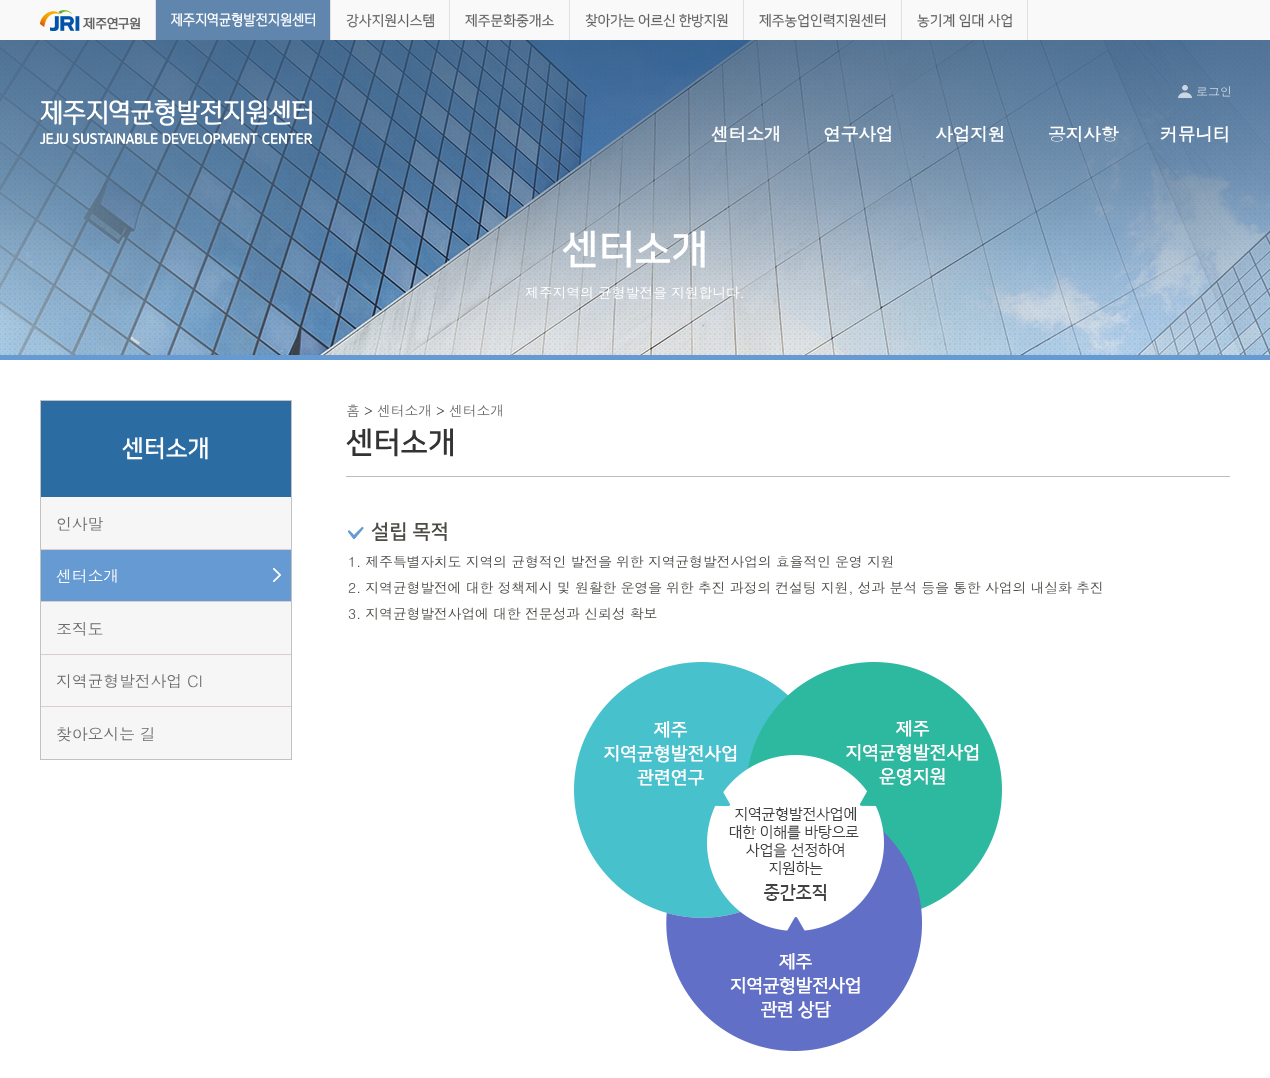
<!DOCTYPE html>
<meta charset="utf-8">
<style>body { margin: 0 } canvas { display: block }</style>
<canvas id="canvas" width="1270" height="1078"></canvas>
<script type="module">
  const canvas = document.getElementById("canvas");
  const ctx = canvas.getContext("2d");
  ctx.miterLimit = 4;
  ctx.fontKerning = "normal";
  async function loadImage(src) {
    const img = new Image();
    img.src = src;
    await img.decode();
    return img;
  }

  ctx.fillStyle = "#ffffff";
  ctx.fillRect(0, 0, 1270, 1078);
  ctx.fillStyle = "#f9f9f9";
  ctx.fillRect(0, 0, 1270, 40);
  ctx.fillStyle = "#e0e0e0";
  ctx.fillRect(155, 0, 1, 40);
  ctx.drawImage(await loadImage("img1.png"), 40, 10, 100, 21);
  ctx.fillStyle = "#6086ae";
  ctx.fillRect(156, 0, 174, 40);
  ctx.fillStyle = "#e0e0e0";
  ctx.fillRect(330, 0, 1, 40);
  ctx.drawImage(await loadImage("img2.png"), 171, 13, 144, 14);
  ctx.fillRect(449, 0, 1, 40);
  ctx.drawImage(await loadImage("img3.png"), 346, 13, 88, 15);
  ctx.fillRect(569, 0, 1, 40);
  ctx.drawImage(await loadImage("img4.png"), 465, 13, 89, 15);
  ctx.fillRect(743, 0, 1, 40);
  ctx.drawImage(await loadImage("img5.png"), 585, 13, 143, 15);
  ctx.fillRect(901, 0, 1, 40);
  ctx.drawImage(await loadImage("img6.png"), 759, 13, 127, 15);
  ctx.fillRect(1027, 0, 1, 40);
  ctx.drawImage(await loadImage("img7.png"), 917, 13, 95, 15);
  ctx.drawImage(await loadImage("img10.png"), 0, 40, 1270, 315);
  ctx.drawImage(await loadImage("img8.png"), 1178, 84, 14, 15);
  ctx.font = "12px Dotum";
  ctx.fillStyle = "#cdd7e2";
  ctx.fillText("로그인", 1196, 96);
  ctx.drawImage(await loadImage("img9.png"), 40, 100, 272, 44);
  ctx.letterSpacing = "-0.5px";
  ctx.font = "bold 18px Dotum";
  ctx.fillStyle = "#ffffff";
  ctx.fillText("센터소개", 711, 141);
  ctx.fillText("연구사업", 823, 141);
  ctx.fillText("사업지원", 935, 141);
  ctx.fillText("공지사항", 1048, 141);
  ctx.fillText("커뮤니티", 1160, 141);
  ctx.fillStyle = "#659ad2";
  ctx.fillRect(0, 355, 1270, 5);
  ctx.letterSpacing = "0px";
  ctx.font = "bold 40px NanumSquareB";
  ctx.fillStyle = "#ffffff";
  ctx.fillText("센터소개", 562, 262);
  ctx.letterSpacing = "-0.28px";
  ctx.font = "14px Dotum";
  ctx.fillText("제주지역의 균형발전을 지원합니다.", 525, 298);
  ctx.strokeStyle = "#c2c2c2";
  ctx.strokeRect(40.5, 400.5, 251, 359);
  ctx.fillStyle = "#2b6ca3";
  ctx.fillRect(41, 401, 250, 96);
  ctx.letterSpacing = "0px";
  ctx.font = "bold 24px NanumSquareB";
  ctx.fillStyle = "#ffffff";
  ctx.fillText("센터소개", 122, 456);
  ctx.fillStyle = "#f6f6f6";
  ctx.fillRect(41, 497, 250, 52);
  ctx.letterSpacing = "-0.25px";
  ctx.font = "16px Dotum";
  ctx.fillStyle = "#6d6d6d";
  ctx.fillText("인사말", 56, 530);
  ctx.fillStyle = "#ddcccc";
  ctx.fillRect(41, 549, 250, 1);
  ctx.fillStyle = "#659ad2";
  ctx.fillRect(41, 550, 250, 51);
  ctx.drawImage(await loadImage("img11.png"), 273, 568, 8, 14);
  ctx.fillStyle = "#ffffff";
  ctx.fillText("센터소개", 56, 582);
  ctx.fillStyle = "#ddcccc";
  ctx.fillRect(41, 601, 250, 1);
  ctx.fillStyle = "#f6f6f6";
  ctx.fillRect(41, 602, 250, 52);
  ctx.fillStyle = "#6d6d6d";
  ctx.fillText("조직도", 56, 635);
  ctx.fillStyle = "#ddcccc";
  ctx.fillRect(41, 654, 250, 1);
  ctx.fillStyle = "#f6f6f6";
  ctx.fillRect(41, 655, 250, 51);
  ctx.fillStyle = "#6d6d6d";
  ctx.fillText("지역균형발전사업 CI", 56, 687);
  ctx.fillStyle = "#ddcccc";
  ctx.fillRect(41, 706, 250, 1);
  ctx.fillStyle = "#f6f6f6";
  ctx.fillRect(41, 707, 250, 52);
  ctx.fillStyle = "#6d6d6d";
  ctx.fillText("찾아오시는 길", 56, 740);
  ctx.fillStyle = "#bcbec0";
  ctx.fillRect(346, 476, 884, 1);
  ctx.letterSpacing = "-0.28px";
  ctx.font = "14px Dotum";
  ctx.fillStyle = "#6d6d6d";
  ctx.fillText("홈", 346, 416);
  ctx.fillStyle = "#4c4b46";
  ctx.fillText(">", 364, 416);
  ctx.fillStyle = "#6d6d6d";
  ctx.fillText("센터소개", 377, 416);
  ctx.fillStyle = "#4c4b46";
  ctx.fillText(">", 436, 416);
  ctx.fillStyle = "#6d6d6d";
  ctx.fillText("센터소개", 449, 416);
  ctx.letterSpacing = "0px";
  ctx.font = "bold 30px NanumSquareB";
  ctx.fillStyle = "#333333";
  ctx.fillText("센터소개", 346, 452);
  ctx.fillStyle = "#659ad2";
  ctx.fillRect(347, 526, 17, 14);
  ctx.drawImage(await loadImage("img12.png"), 346, 523, 20, 20);
  ctx.font = "bold 20px NanumSquareB";
  ctx.fillStyle = "#4c4b46";
  ctx.fillText("설립 목적", 371, 538);
  ctx.letterSpacing = "-0.28px";
  ctx.font = "14px Dotum";
  ctx.fillText("1. 제주특별자치도 지역의 균형적인 발전을 위한 지역균형발전사업의 효율적인 운영 지원", 348, 567);
  ctx.fillText("2. 지역균형발전에 대한 정책제시 및 원활한 운영을 위한 추진 과정의 컨설팅 지원, 성과 분석 등을 통한 사업의 내실화 추진", 348, 593);
  ctx.fillText("3. 지역균형발전사업에 대한 전문성과 신뢰성 확보", 348, 619);
  ctx.drawImage(await loadImage("img13.png"), 574, 662, 428, 389);
</script>
